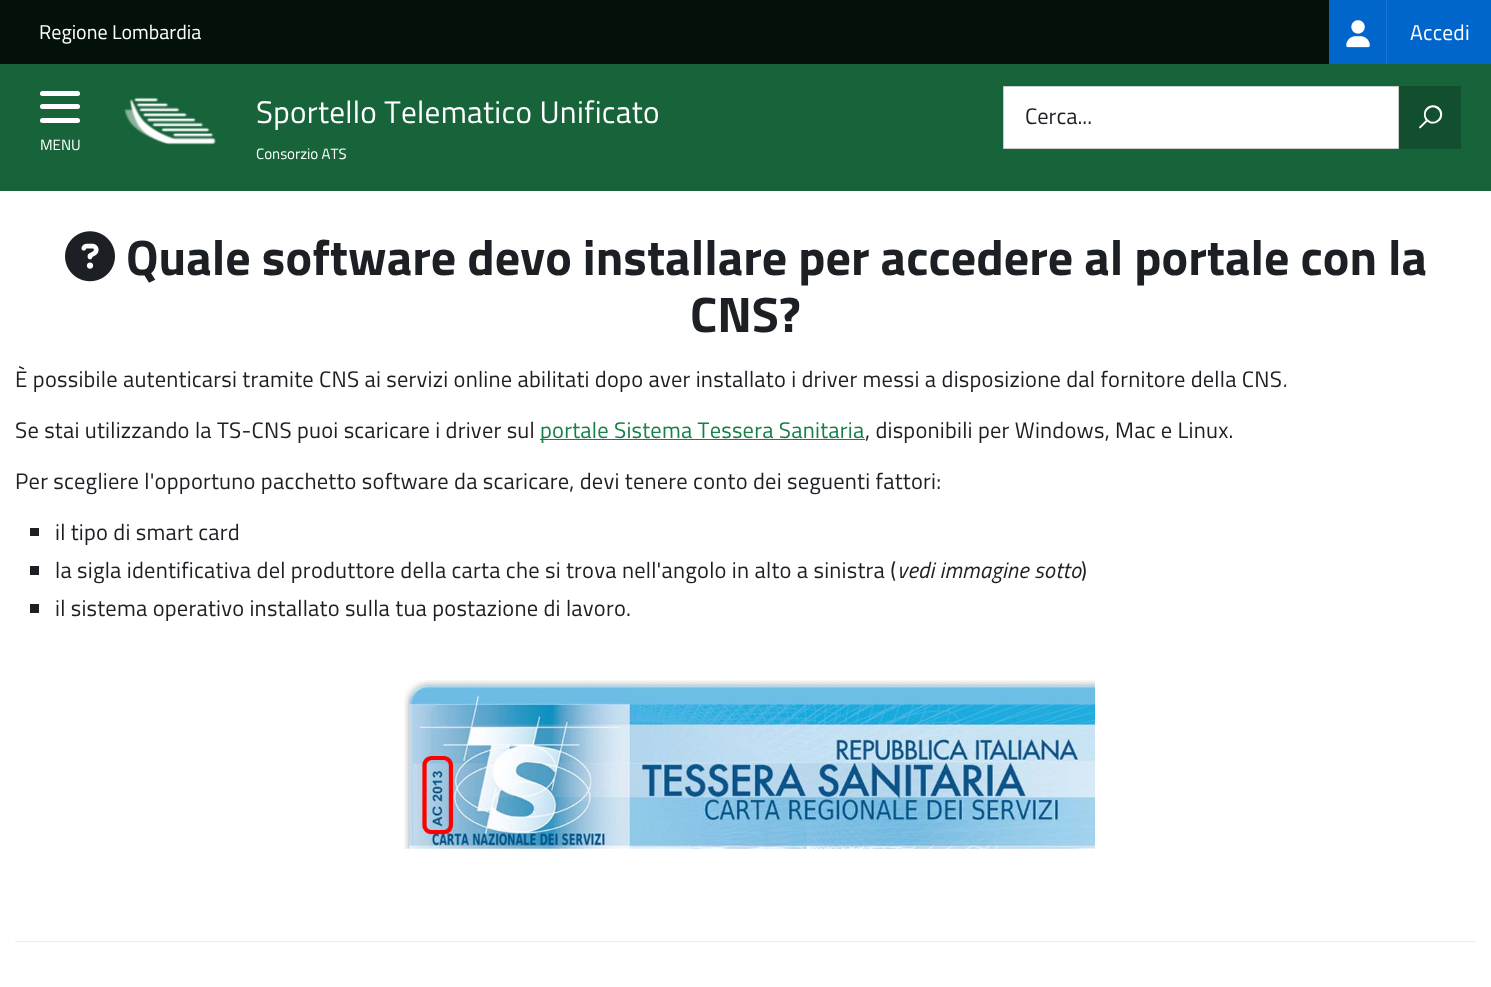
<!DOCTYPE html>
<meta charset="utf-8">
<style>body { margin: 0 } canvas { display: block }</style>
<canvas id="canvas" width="1491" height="987"></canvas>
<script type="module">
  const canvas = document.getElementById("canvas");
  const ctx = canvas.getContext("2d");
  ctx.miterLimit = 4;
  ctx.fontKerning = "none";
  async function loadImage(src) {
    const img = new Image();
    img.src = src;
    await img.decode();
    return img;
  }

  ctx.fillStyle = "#ffffff";
  ctx.fillRect(0, 0, 1491, 987);
  ctx.fillStyle = "#04110a";
  ctx.fillRect(0, 0, 1329, 64);
  ctx.font = "20px Titillium Web";
  ctx.fillStyle = "#ffffff";
  ctx.fillText("Regione Lombardia", 39, 39);
  ctx.fillStyle = "#0066cc";
  ctx.fillRect(1329, 0, 162, 64);
  ctx.fillStyle = "#1a75d1";
  ctx.fillRect(1386, 0, 1, 64);
  ctx.drawImage(await loadImage("img1.png"), 1346, 20, 24, 28);
  ctx.letterSpacing = "0.22px";
  ctx.font = "21.5px Titillium Web";
  ctx.fillStyle = "#ffffff";
  ctx.fillText("Accedi", 1410, 40);
  ctx.fillStyle = "#17643b";
  ctx.fillRect(0, 64, 1491, 127);
  ctx.drawImage(await loadImage("img2.png"), 124, 97, 92, 48);
  ctx.letterSpacing = "0.3px";
  ctx.font = "31.25px Titillium Web";
  ctx.fillStyle = "#ffffff";
  ctx.fillText("Sportello Telematico Unificato", 256, 123);
  ctx.letterSpacing = "0px";
  ctx.font = "15px Titillium Web";
  ctx.fillText("Consorzio ATS", 256, 159);
  ctx.beginPath();
  ctx.rect(1003.5, 86.5, 395, 62);
  ctx.fill();
  ctx.strokeStyle = "#cccccc";
  ctx.stroke();
  ctx.fillStyle = "#124f2e";
  ctx.fillRect(1399, 86, 62, 63);
  ctx.font = "bold 22.5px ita";
  ctx.fillStyle = "#ffffff";
  ctx.fillText("🔍", 1419, 127);
  ctx.font = "22.5px Titillium Web";
  ctx.fillStyle = "#1c2024";
  ctx.fillText("Cerca...", 1025, 124);
  ctx.fillStyle = "#ffffff";
  ctx.beginPath();
  ctx.roundRect(40, 104, 40, 5, 2.5);
  ctx.fill();
  ctx.beginPath();
  ctx.roundRect(40, 91, 40, 5, 2.5);
  ctx.fill();
  ctx.beginPath();
  ctx.roundRect(40, 118, 40, 5, 2.5);
  ctx.fill();
  ctx.font = "15px Titillium Web";
  ctx.fillText("MENU", 40, 150);
  ctx.drawImage(await loadImage("img3.png"), 65, 231, 50, 51);
  ctx.font = "bold 50px Titillium Web";
  ctx.fillStyle = "#1c2024";
  ctx.fillText("Quale software devo installare per accedere al portale con la", 126, 275);
  ctx.fillText("CNS?", 690, 332);
  ctx.letterSpacing = "0.22px";
  ctx.font = "22.5px Titillium Web";
  ctx.fillText("È possibile autenticarsi tramite CNS ai servizi online abilitati dopo aver installato i driver messi a disposizione dal fornitore della CNS", 15, 387);
  ctx.font = "italic 22.5px Titillium Web";
  ctx.fillText(".", 1283, 387);
  ctx.font = "22.5px Titillium Web";
  ctx.fillText("Se stai utilizzando la TS-CNS puoi scaricare i driver sul", 15, 438);
  ctx.fillStyle = "#178048";
  ctx.fillRect(540, 439, 325, 1);
  ctx.fillText("portale Sistema Tessera Sanitaria", 540, 438);
  ctx.fillStyle = "#1c2024";
  ctx.fillText(", disponibili per Windows, Mac e Linux.", 865, 438);
  ctx.fillText("Per scegliere l'opportuno pacchetto software da scaricare, devi tenere conto dei seguenti fattori:", 15, 489);
  ctx.fillRect(30, 528, 9, 8);
  ctx.fillText("il tipo di smart card", 55, 540);
  ctx.fillRect(30, 566, 9, 9);
  ctx.fillText("la sigla identificativa del produttore della carta che si trova nell'angolo in alto a sinistra (", 55, 578);
  ctx.font = "italic 22.5px Titillium Web";
  ctx.fillText("vedi immagine sotto", 897, 578);
  ctx.font = "22.5px Titillium Web";
  ctx.fillText(")", 1081, 578);
  ctx.fillRect(30, 604, 9, 9);
  ctx.fillText("il sistema operativo installato sulla tua postazione di lavoro.", 55, 616);
  ctx.drawImage(await loadImage("img4.png"), 404, 680, 691, 169);
  ctx.fillStyle = "#ececec";
  ctx.fillRect(15, 941, 1461, 1);
</script>
